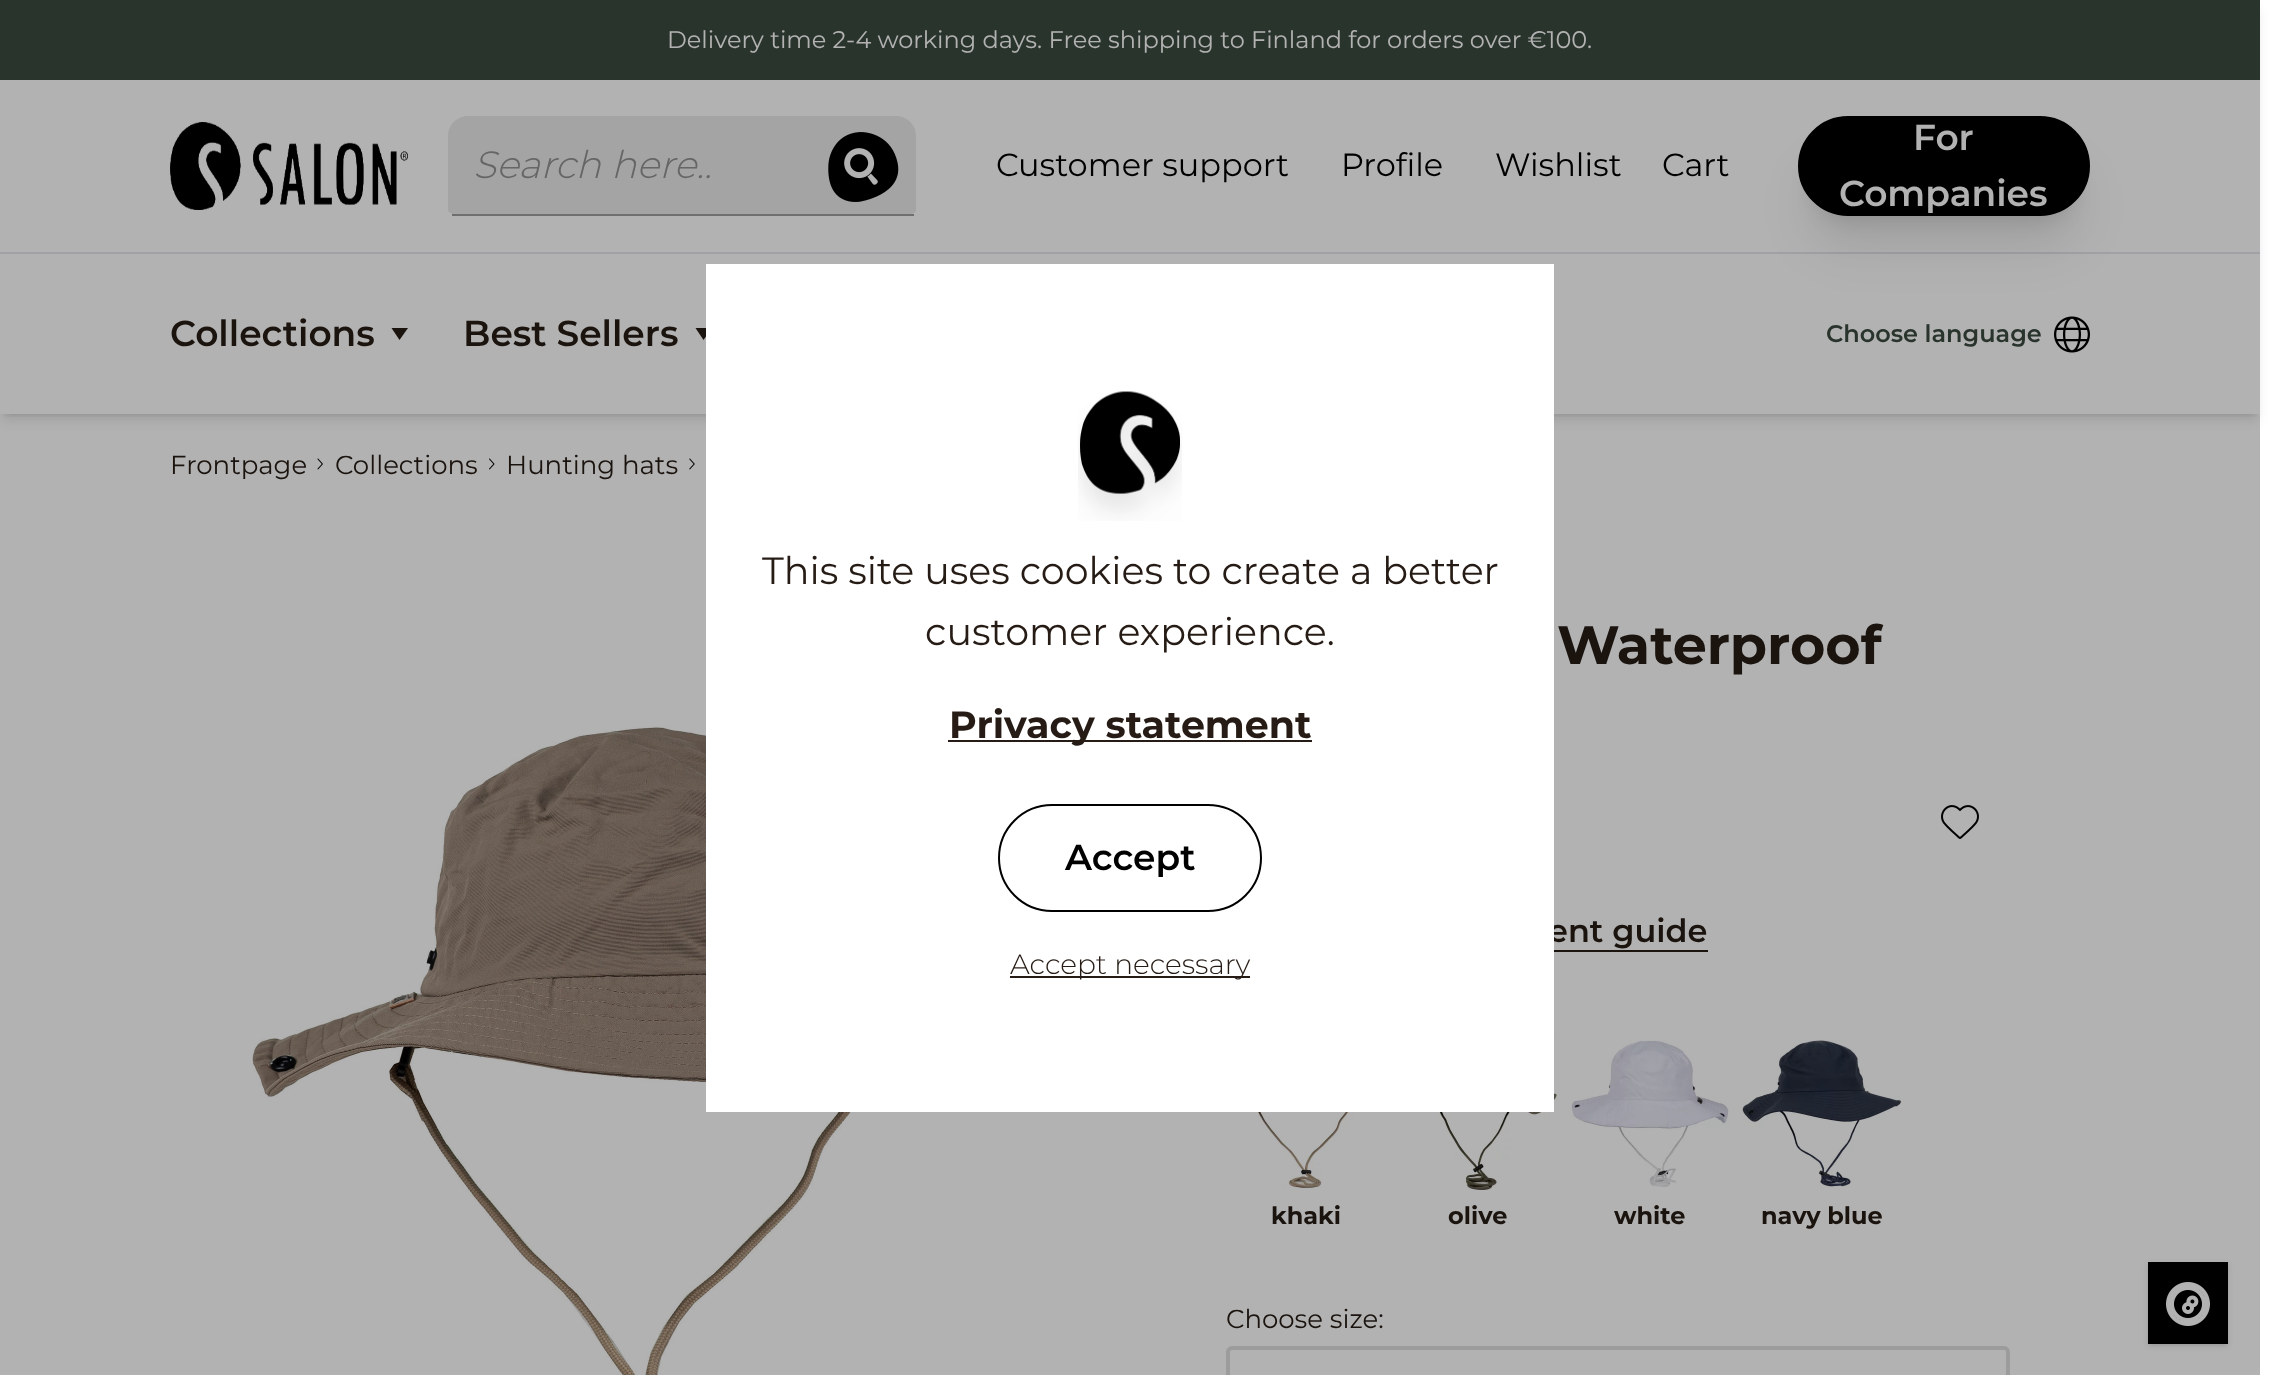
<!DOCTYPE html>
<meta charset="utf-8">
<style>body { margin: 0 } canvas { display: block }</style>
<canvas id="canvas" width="2270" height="1375"></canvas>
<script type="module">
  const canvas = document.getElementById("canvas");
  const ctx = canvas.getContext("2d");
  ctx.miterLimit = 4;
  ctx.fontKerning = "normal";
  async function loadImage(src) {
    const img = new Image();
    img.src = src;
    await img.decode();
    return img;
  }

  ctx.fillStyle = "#ffffff";
  ctx.fillRect(0, 0, 2270, 1375);
  ctx.save();
  ctx.beginPath();
  ctx.rect(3, 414, 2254, 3);
  ctx.clip();
  ctx.fillStyle = "rgba(0, 0, 0, 0.1)";
  ctx.filter = "blur(4px)";
  ctx.beginPath();
  ctx.rect(4, 8, 2252, 406);
  ctx.fill();
  ctx.filter = "none";
  ctx.restore();
  ctx.save();
  ctx.beginPath();
  ctx.moveTo(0, 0);
  ctx.lineTo(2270, 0);
  ctx.lineTo(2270, 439);
  ctx.lineTo(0, 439);
  ctx.closePath();
  ctx.moveTo(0, 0);
  ctx.lineTo(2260, 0);
  ctx.lineTo(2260, 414);
  ctx.lineTo(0, 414);
  ctx.closePath();
  ctx.clip("evenodd");
  ctx.fillStyle = "rgba(0, 0, 0, 0.1)";
  ctx.filter = "blur(6px)";
  ctx.beginPath();
  ctx.rect(2, 10, 2256, 410);
  ctx.fill();
  ctx.filter = "none";
  ctx.restore();
  ctx.fillStyle = "#3c4b41";
  ctx.fillRect(0, 0, 2260, 80);
  ctx.font = "24px Montserrat";
  ctx.fillStyle = "#ffffff";
  ctx.fillText("Delivery time 2-4 working days. Free shipping to Finland for orders over €100.", 667, 48);
  ctx.drawImage(await loadImage("img1.png"), 170, 122, 238, 88);
  ctx.fillStyle = "#ebebeb";
  ctx.beginPath();
  ctx.moveTo(468, 116);
  ctx.lineTo(896, 116);
  ctx.bezierCurveTo(907, 116, 916, 125, 916, 136);
  ctx.lineTo(916, 210);
  ctx.bezierCurveTo(916, 212, 913, 214, 910, 214);
  ctx.lineTo(454, 214);
  ctx.bezierCurveTo(451, 214, 448, 212, 448, 210);
  ctx.lineTo(448, 136);
  ctx.bezierCurveTo(448, 125, 457, 116, 468, 116);
  ctx.closePath();
  ctx.fill();
  ctx.fillStyle = "#9f9f9f";
  ctx.fillRect(452, 214, 462, 2);
  ctx.font = "italic 300 38px Montserrat";
  ctx.fillStyle = "#929292";
  ctx.fillText("Search here..", 473, 178);
  ctx.drawImage(await loadImage("img2.png"), 828, 132, 71, 70);
  ctx.font = "32px Montserrat";
  ctx.fillStyle = "#000000";
  ctx.fillText("Customer support", 996, 176);
  ctx.fillText("Profile", 1341, 176);
  ctx.fillText("Wishlist", 1495, 176);
  ctx.fillText("Cart", 1662, 176);
  ctx.fillStyle = "rgba(0, 0, 0, 0.1)";
  ctx.filter = "blur(10px)";
  ctx.beginPath();
  ctx.roundRect(1810, 144, 268, 76, 38);
  ctx.fill();
  ctx.filter = "none";
  ctx.fillStyle = "#e5e7eb";
  ctx.fillRect(0, 252, 2260, 2);
  ctx.fillStyle = "rgba(0, 0, 0, 0.1)";
  ctx.filter = "blur(25px)";
  ctx.beginPath();
  ctx.roundRect(1808, 166, 272, 80, 40);
  ctx.fill();
  ctx.filter = "none";
  ctx.fillStyle = "#000000";
  ctx.beginPath();
  ctx.roundRect(1799, 117, 290, 98, 49);
  ctx.fill();
  ctx.strokeStyle = "#000000";
  ctx.lineWidth = 2;
  ctx.stroke();
  ctx.font = "600 36px Montserrat";
  ctx.fillStyle = "#ffffff";
  ctx.fillText("For", 1913, 150);
  ctx.fillText("Companies", 1839, 206);
  ctx.fillStyle = "#261c15";
  ctx.fillText("Collections", 170, 346);
  ctx.beginPath();
  ctx.moveTo(399.5, 340);
  ctx.lineTo(391.5, 328);
  ctx.lineTo(408, 328);
  ctx.closePath();
  ctx.fill();
  ctx.fillText("Best Sellers", 463, 346);
  ctx.beginPath();
  ctx.moveTo(703.5, 340);
  ctx.lineTo(695.5, 328);
  ctx.lineTo(712, 328);
  ctx.closePath();
  ctx.fill();
  ctx.font = "600 24px Montserrat";
  ctx.fillStyle = "#3c4b41";
  ctx.fillText("Choose language", 1826, 342);
  ctx.drawImage(await loadImage("img3.png"), 2054, 316, 36, 37);
  ctx.font = "26px Montserrat";
  ctx.fillStyle = "#261c15";
  ctx.fillText("Frontpage", 170, 474);
  ctx.drawImage(await loadImage("img4.png"), 317, 458, 6, 12);
  ctx.fillText("Collections", 335, 474);
  ctx.drawImage(await loadImage("img5.png"), 489, 458, 6, 12);
  ctx.fillText("Hunting hats", 506, 474);
  ctx.drawImage(await loadImage("img6.png"), 689, 458, 6, 12);
  ctx.drawImage(await loadImage("img7.png"), 252, 726, 794, 649);
  ctx.font = "bold 54px Montserrat";
  ctx.fillText("Waterproof", 1557, 664);
  ctx.drawImage(await loadImage("img8.png"), 1941, 805, 38, 34);
  ctx.font = "600 32px Montserrat";
  ctx.fillText("ent guide", 1548, 942);
  ctx.fillRect(1554, 950, 154, 2);
  ctx.drawImage(await loadImage("img9.png"), 1226, 1112, 160, 76);
  ctx.font = "bold 24px Montserrat";
  ctx.fillText("khaki", 1271, 1224);
  ctx.drawImage(await loadImage("img10.png"), 1399, 1034, 158, 156);
  ctx.fillText("olive", 1448, 1224);
  ctx.drawImage(await loadImage("img11.png"), 1571, 1040, 158, 147);
  ctx.fillText("white", 1614, 1224);
  ctx.drawImage(await loadImage("img12.png"), 1742, 1040, 159, 148);
  ctx.fillText("navy blue", 1761, 1224);
  ctx.font = "26px Montserrat";
  ctx.fillText("Choose size:", 1226, 1328);
  ctx.beginPath();
  ctx.roundRect(1228, 1348, 780, 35, 4);
  ctx.strokeStyle = "#e0e0e0";
  ctx.lineWidth = 4;
  ctx.stroke();
  ctx.fillStyle = "rgba(0, 0, 0, 0.1)";
  ctx.filter = "blur(2px)";
  ctx.beginPath();
  ctx.rect(2150, 1266, 76, 78);
  ctx.fill();
  ctx.filter = "none";
  ctx.filter = "blur(3px)";
  ctx.beginPath();
  ctx.rect(2148, 1264, 80, 82);
  ctx.fill();
  ctx.filter = "none";
  ctx.fillStyle = "#000000";
  ctx.fillRect(2148, 1262, 80, 82);
  ctx.drawImage(await loadImage("img14.png"), 2166, 1282, 44, 44);
  ctx.fillStyle = "rgba(0, 0, 0, 0.3)";
  ctx.fillRect(0, 0, 2260, 1375);
  ctx.fillStyle = "#ffffff";
  ctx.fillRect(706, 264, 848, 848);
  ctx.drawImage(await loadImage("img13.png"), 1078, 391, 104, 130);
  ctx.font = "38px Montserrat";
  ctx.fillStyle = "#261c15";
  ctx.fillText("This site uses cookies to create a better", 762, 584);
  ctx.fillText("customer experience.", 925, 645);
  ctx.fillRect(948, 740, 364, 2);
  ctx.font = "bold 38px Montserrat";
  ctx.fillText("Privacy statement", 949, 738);
  ctx.beginPath();
  ctx.roundRect(999, 805, 262, 106, 53);
  ctx.strokeStyle = "#000000";
  ctx.lineWidth = 2;
  ctx.stroke();
  ctx.font = "600 36px Montserrat";
  ctx.fillStyle = "#000000";
  ctx.fillText("Accept", 1065, 870);
  ctx.fillStyle = "#261c15";
  ctx.fillRect(1010, 976, 240, 2);
  ctx.font = "300 28px Montserrat";
  ctx.fillText("Accept necessary", 1010, 974);
</script>
